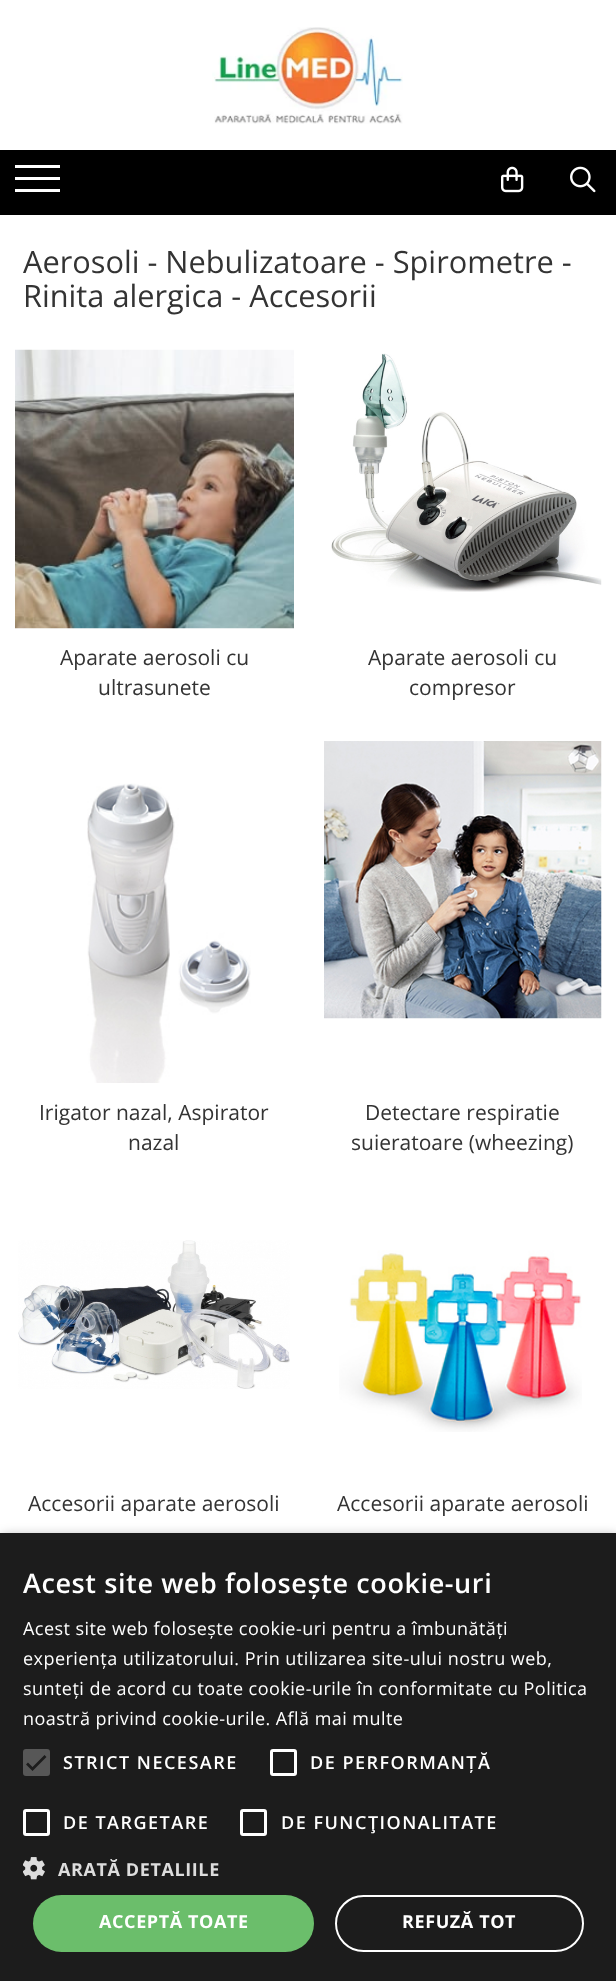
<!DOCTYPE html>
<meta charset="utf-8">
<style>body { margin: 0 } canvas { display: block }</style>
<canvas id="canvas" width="616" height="1981"></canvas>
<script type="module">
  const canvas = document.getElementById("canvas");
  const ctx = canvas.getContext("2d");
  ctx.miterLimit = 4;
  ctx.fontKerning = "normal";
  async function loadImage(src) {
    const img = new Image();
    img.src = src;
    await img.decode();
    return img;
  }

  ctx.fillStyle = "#ffffff";
  ctx.fillRect(0, 0, 616, 1981);
  ctx.drawImage(await loadImage("img1.png"), 212, 27, 191, 97);
  ctx.fillStyle = "#000000";
  ctx.fillRect(0, 150, 616, 65);
  ctx.fillStyle = "#ffffff";
  ctx.fillRect(15, 177, 45, 3);
  ctx.fillRect(15, 165, 45, 3);
  ctx.fillRect(15, 189, 45, 3);
  ctx.drawImage(await loadImage("img2.png"), 501, 166, 23, 27);
  ctx.drawImage(await loadImage("img3.png"), 570, 166, 26, 27);
  ctx.font = "30.75px Open Sans";
  ctx.fillStyle = "#333333";
  ctx.fillText("Aerosoli - Nebulizatoare - Spirometre -", 23, 273);
  ctx.fillText("Rinita alergica - Accesorii", 23, 307);
  ctx.drawImage(await loadImage("img4.png"), 15, 349, 279, 280);
  ctx.font = "21px Open Sans";
  ctx.fillText("Aparate aerosoli cu", 60, 665);
  ctx.fillText("ultrasunete", 98, 695);
  ctx.drawImage(await loadImage("img5.png"), 331, 353, 271, 239);
  ctx.fillText("Aparate aerosoli cu", 368, 665);
  ctx.fillText("compresor", 409, 695);
  ctx.drawImage(await loadImage("img6.png"), 87, 783, 164, 300);
  ctx.fillText("Irigator nazal, Aspirator", 39, 1120);
  ctx.fillText("nazal", 128, 1150);
  ctx.drawImage(await loadImage("img7.png"), 324, 741, 278, 278);
  ctx.fillText("Detectare respiratie", 365, 1120);
  ctx.fillText("suieratoare (wheezing)", 351, 1150);
  ctx.drawImage(await loadImage("img8.png"), 18, 1240, 272, 149);
  ctx.fillText("Accesorii aparate aerosoli", 28, 1511);
  ctx.drawImage(await loadImage("img9.png"), 339, 1250, 243, 182);
  ctx.fillText("Accesorii aparate aerosoli", 337, 1511);
  ctx.fillStyle = "rgba(0, 0, 0, 0.35)";
  ctx.filter = "blur(6px)";
  ctx.beginPath();
  ctx.rect(2, 1536, 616, 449);
  ctx.fill();
  ctx.filter = "none";
  ctx.fillStyle = "#1c1c1c";
  ctx.fillRect(0, 1533, 616, 448);
  ctx.letterSpacing = "0.6px";
  ctx.font = "600 27px Open Sans";
  ctx.fillStyle = "#ffffff";
  ctx.fillText("Acest site web folosește cookie-uri", 23, 1593);
  ctx.letterSpacing = "0.45px";
  ctx.font = "18px Open Sans";
  ctx.fillText("Acest site web folosește cookie-uri pentru a îmbunătăți", 23, 1635);
  ctx.fillText("experiența utilizatorului. Prin utilizarea site-ului nostru web,", 23, 1665);
  ctx.fillText("sunteți de acord cu toate cookie-urile în conformitate cu Politica", 23, 1695);
  ctx.fillText("noastră privind cookie-urile. Află mai multe", 23, 1725);
  ctx.fillStyle = "#575757";
  ctx.beginPath();
  ctx.roundRect(23, 1749, 27, 27, 3);
  ctx.fill();
  ctx.beginPath();
  ctx.moveTo(27, 1763.5);
  ctx.lineTo(32.5, 1769);
  ctx.lineTo(45.5, 1756);
  ctx.strokeStyle = "#1c1c1c";
  ctx.lineWidth = 2.7;
  ctx.stroke();
  ctx.letterSpacing = "1.5px";
  ctx.font = "600 18px Open Sans";
  ctx.fillStyle = "#ffffff";
  ctx.fillText("STRICT NECESARE", 63, 1769);
  ctx.beginPath();
  ctx.roundRect(271.5, 1750.5, 24, 24, 1.5);
  ctx.strokeStyle = "#ffffff";
  ctx.lineWidth = 3;
  ctx.stroke();
  ctx.fillText("DE PERFORMANȚĂ", 310, 1769);
  ctx.beginPath();
  ctx.roundRect(24.5, 1810.5, 24, 24, 1.5);
  ctx.stroke();
  ctx.fillText("DE TARGETARE", 63, 1829);
  ctx.beginPath();
  ctx.roundRect(241.5, 1810.5, 24, 24, 1.5);
  ctx.stroke();
  ctx.fillText("DE FUNCŢIONALITATE", 281, 1829);
  ctx.drawImage(await loadImage("img10.png"), 23, 1857, 22, 23);
  ctx.letterSpacing = "0.6px";
  ctx.font = "bold 18px Open Sans";
  ctx.fillStyle = "#dddddd";
  ctx.fillText("ARATĂ DETALIILE", 58, 1876);
  ctx.fillStyle = "#6bbe6b";
  ctx.beginPath();
  ctx.roundRect(33, 1895, 281, 57, 28.5);
  ctx.fill();
  ctx.fillStyle = "#ffffff";
  ctx.fillText("ACCEPTĂ TOATE", 99, 1928);
  ctx.beginPath();
  ctx.roundRect(336, 1896, 247, 55, 27.5);
  ctx.lineWidth = 2;
  ctx.stroke();
  ctx.fillText("REFUZĂ TOT", 402, 1928);
</script>
